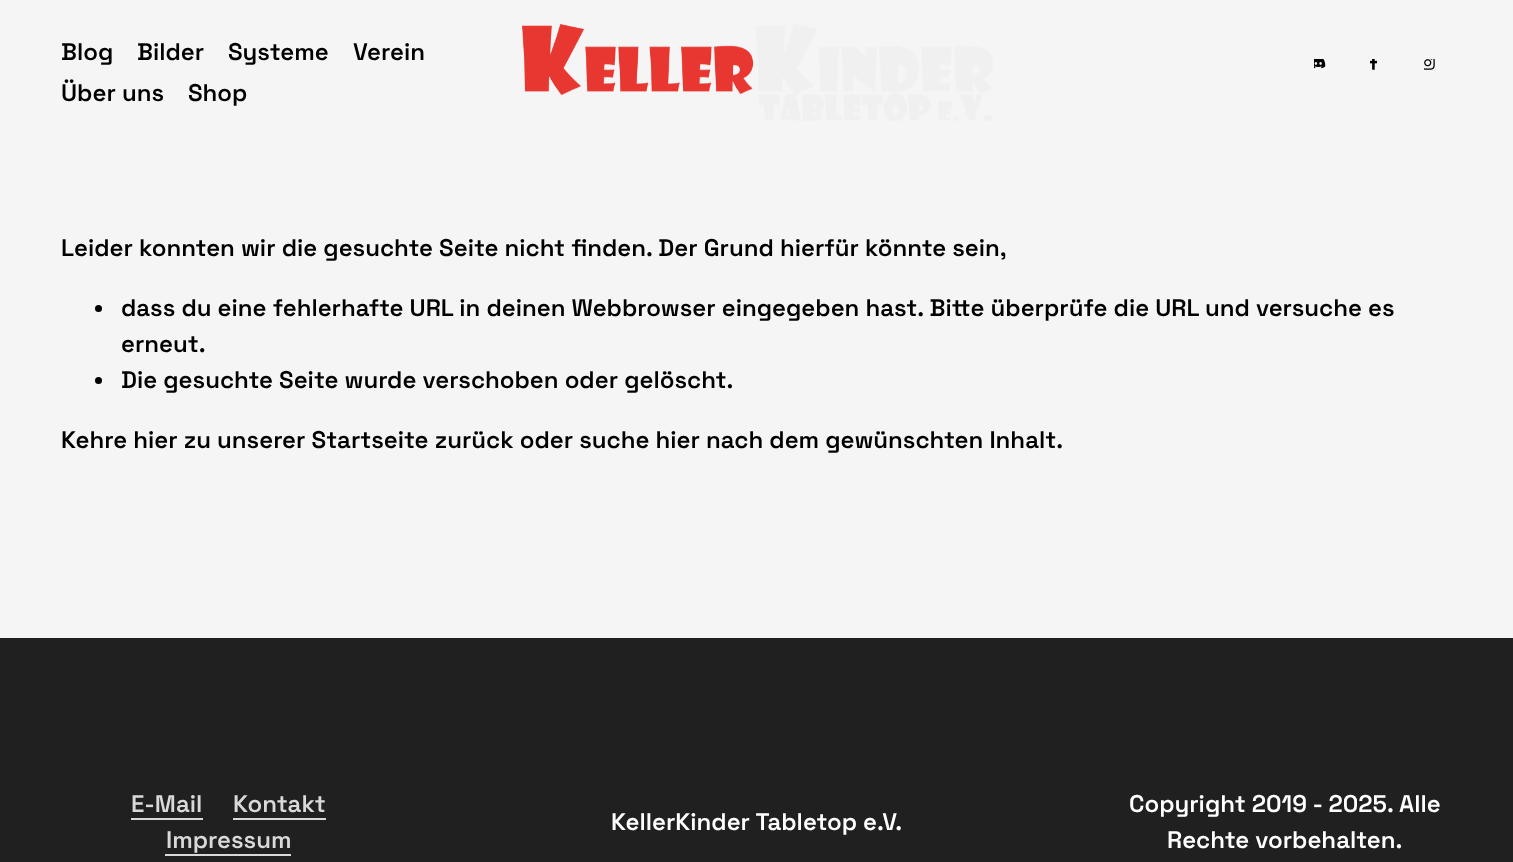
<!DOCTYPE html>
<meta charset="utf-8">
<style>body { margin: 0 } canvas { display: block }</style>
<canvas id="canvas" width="1513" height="862"></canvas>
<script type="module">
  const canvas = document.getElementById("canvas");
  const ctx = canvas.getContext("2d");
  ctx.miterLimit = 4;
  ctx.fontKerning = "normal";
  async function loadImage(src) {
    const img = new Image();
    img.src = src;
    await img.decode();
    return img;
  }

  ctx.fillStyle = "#f5f5f5";
  ctx.fillRect(0, 0, 1513, 862);
  ctx.font = "600 24px Space Grotesk";
  ctx.fillStyle = "#000000";
  ctx.fillText("Blog", 61, 60);
  ctx.fillText("Bilder", 137, 60);
  ctx.fillText("Systeme", 228, 60);
  ctx.fillText("Verein", 353, 60);
  ctx.fillText("Über uns", 61, 101);
  ctx.fillText("Shop", 188, 101);
  ctx.drawImage(await loadImage("img1.png"), 522, 24, 471, 97);
  ctx.drawImage(await loadImage("img2.png"), 1314, 59, 12, 10);
  ctx.drawImage(await loadImage("img3.png"), 1370, 59, 8, 11);
  ctx.drawImage(await loadImage("img4.png"), 1424, 59, 11, 11);
  ctx.fillText("Leider konnten wir die gesuchte Seite nicht finden. Der Grund hierfür könnte sein,", 61, 256);
  ctx.beginPath();
  ctx.arc(98.5, 308.5, 3.5, 0, Math.PI * 2);
  ctx.fill();
  ctx.fillText("dass du eine fehlerhafte URL in deinen Webbrowser eingegeben hast. Bitte überprüfe die URL und versuche es", 121, 316);
  ctx.fillText("erneut.", 121, 352);
  ctx.beginPath();
  ctx.arc(98.5, 380.5, 3.5, 0, Math.PI * 2);
  ctx.fill();
  ctx.fillText("Die gesuchte Seite wurde verschoben oder gelöscht.", 121, 388);
  ctx.fillText("Kehre hier zu unserer Startseite zurück oder suche hier nach dem gewünschten Inhalt.", 61, 448);
  ctx.fillStyle = "#202020";
  ctx.fillRect(0, 638, 1513, 224);
  ctx.fillStyle = "#d9d9d9";
  ctx.fillText("E-Mail", 131, 812);
  ctx.fillRect(131, 818, 72, 2);
  ctx.fillText("Kontakt", 233, 812);
  ctx.fillRect(233, 818, 93, 2);
  ctx.fillText("Impressum", 166, 848);
  ctx.fillRect(165, 854, 126, 2);
  ctx.fillStyle = "#ffffff";
  ctx.fillText("KellerKinder Tabletop e.V.", 611, 830);
  ctx.fillText("Copyright 2019 - 2025. Alle", 1129, 812);
  ctx.fillText("Rechte vorbehalten.", 1167, 848);
</script>
